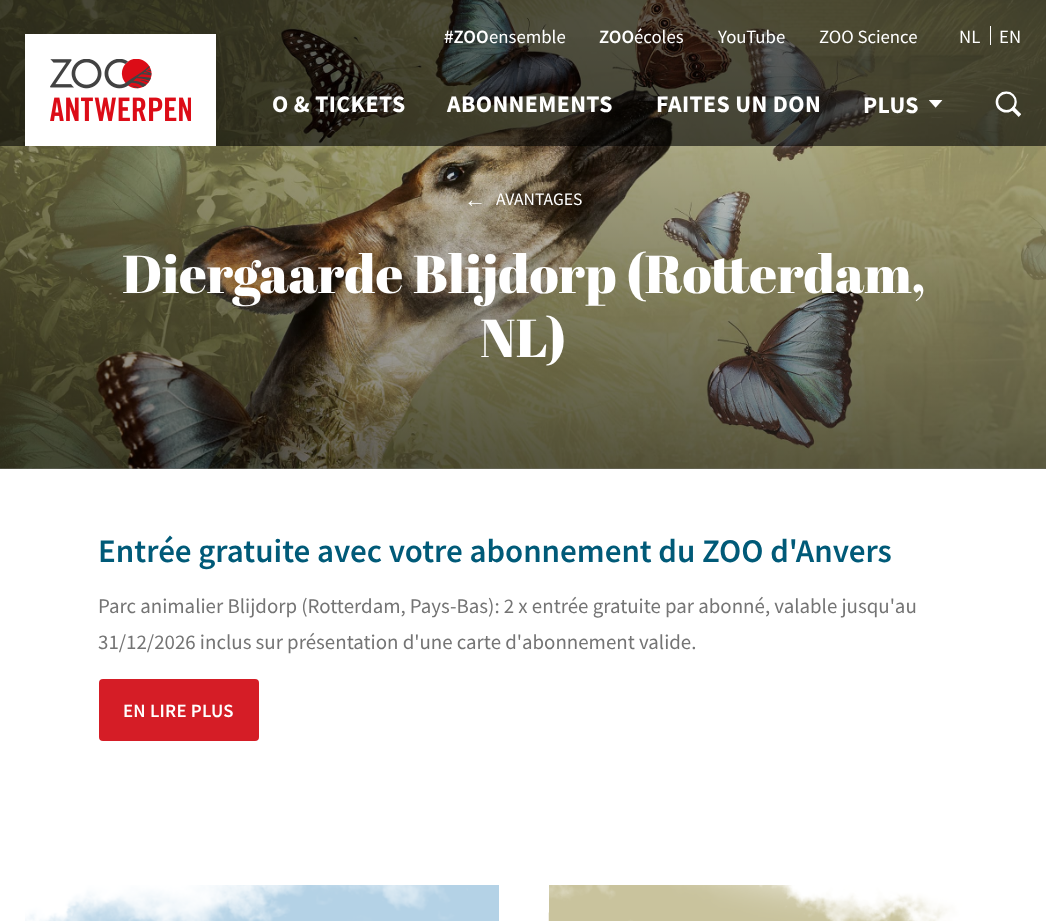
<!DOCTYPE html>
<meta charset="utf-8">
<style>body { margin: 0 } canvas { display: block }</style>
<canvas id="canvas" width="1046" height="921"></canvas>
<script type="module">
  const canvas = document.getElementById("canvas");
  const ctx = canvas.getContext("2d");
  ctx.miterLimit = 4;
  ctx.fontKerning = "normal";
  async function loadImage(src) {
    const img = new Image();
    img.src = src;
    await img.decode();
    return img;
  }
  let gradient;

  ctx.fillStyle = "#ffffff";
  ctx.fillRect(0, 0, 1046, 921);
  ctx.fillStyle = "#e8e7e2";
  ctx.fillRect(0, 468, 1046, 1);
  ctx.drawImage(await loadImage("img1.png"), 0, 0, 1046, 469);
  gradient = ctx.createLinearGradient(523, 0, 523, 469);
  gradient.addColorStop(0.04, "rgba(0, 0, 0, 0)");
  gradient.addColorStop(0.98, "rgba(0, 0, 0, 0.52)");
  ctx.fillStyle = gradient;
  ctx.fillRect(0, 37, 1046, 432);
  ctx.fillStyle = "rgba(0, 0, 0, 0.6)";
  ctx.fillRect(0, 0, 1046, 146);
  ctx.fillStyle = "#ffffff";
  ctx.fillRect(25, 34, 191, 112);
  ctx.drawImage(await loadImage("img2.png"), 50, 59, 141, 62);
  ctx.font = "600 18.75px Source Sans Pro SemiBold";
  ctx.fillText("#ZOO", 444, 43);
  ctx.font = "18.75px Source Sans Pro";
  ctx.fillText("ensemble", 489, 43);
  ctx.font = "600 18.75px Source Sans Pro SemiBold";
  ctx.fillText("ZOO", 599, 43);
  ctx.font = "18.75px Source Sans Pro";
  ctx.fillText("écoles", 634, 43);
  ctx.fillText("YouTube", 718, 43);
  ctx.fillText("ZOO Science", 819, 43);
  ctx.fillText("NL", 959, 43);
  ctx.fillRect(990, 26, 1, 19);
  ctx.fillText("EN", 999, 43);
  ctx.letterSpacing = "0.4px";
  ctx.font = "bold 23.75px Source Sans Pro";
  ctx.fillText("O & TICKETS", 272, 112);
  ctx.fillText("ABONNEMENTS", 447, 112);
  ctx.fillText("FAITES UN DON", 656, 112);
  ctx.fillText("PLUS", 863, 113);
  ctx.drawImage(await loadImage("img3.png"), 929, 100, 14, 8);
  ctx.drawImage(await loadImage("img4.png"), 995, 91, 26, 26);
  ctx.letterSpacing = "0px";
  ctx.font = "22px Liberation Sans";
  ctx.fillText("←", 464, 207);
  ctx.font = "17.5px Source Sans Pro";
  ctx.fillText("AVANTAGES", 496, 205);
  ctx.font = "53.4px Abril Fatface";
  ctx.fillText("Diergaarde Blijdorp (Rotterdam,", 122, 293);
  ctx.fillText("NL)", 480, 357);
  ctx.font = "600 33px Source Sans Pro SemiBold";
  ctx.fillStyle = "#005a78";
  ctx.fillText("Entrée gratuite avec votre abonnement du ZOO d'Anvers", 98, 562);
  ctx.font = "20.9px Source Sans Pro";
  ctx.fillStyle = "#747474";
  ctx.fillText("Parc animalier Blijdorp (Rotterdam, Pays-Bas): 2 x entrée gratuite par abonné, valable jusqu'au", 98, 613);
  ctx.fillText("31/12/2026 inclus sur présentation d'une carte d'abonnement valide.", 98, 649);
  ctx.fillStyle = "#d51d26";
  ctx.beginPath();
  ctx.roundRect(99, 679, 160, 62, 4);
  ctx.fill();
  ctx.letterSpacing = "0.25px";
  ctx.font = "600 18.75px Source Sans Pro SemiBold";
  ctx.fillStyle = "#ffffff";
  ctx.fillText("EN LIRE PLUS", 123, 717);
  ctx.fillStyle = "#b4d2e6";
  ctx.fillRect(25, 885, 474, 36);
  ctx.drawImage(await loadImage("img5.png"), 25, 885, 443, 36);
  ctx.fillStyle = "#c9c39d";
  ctx.fillRect(549, 885, 430, 28);
  ctx.drawImage(await loadImage("img6.png"), 548, 912, 432, 9);
  ctx.drawImage(await loadImage("img7.png"), 549, 885, 473, 36);
</script>
